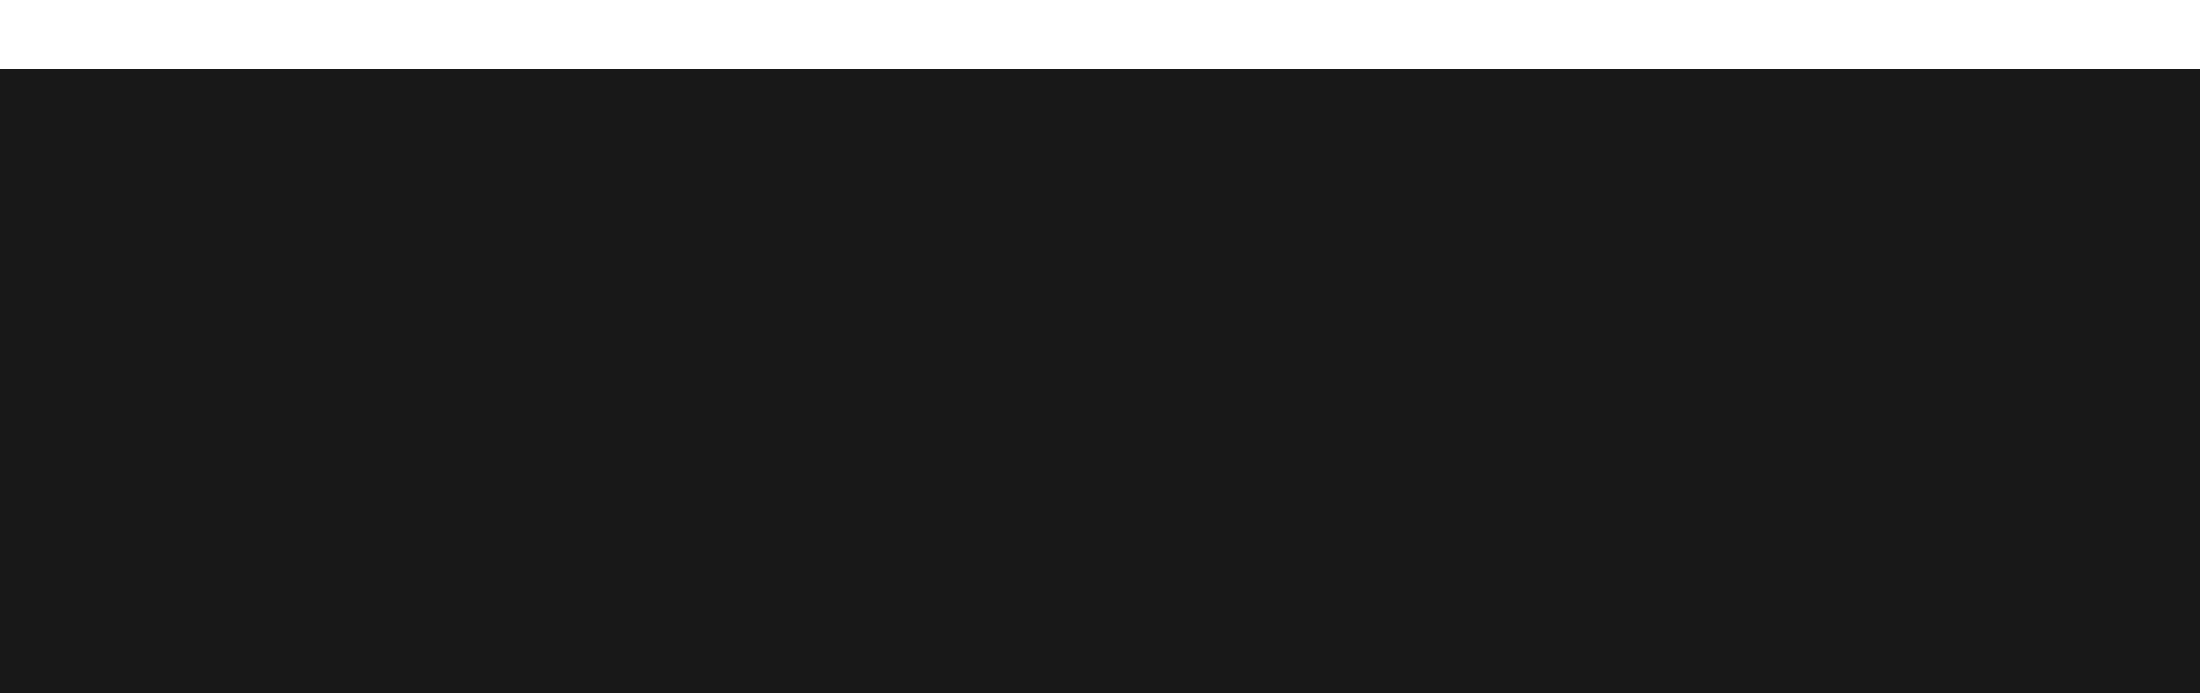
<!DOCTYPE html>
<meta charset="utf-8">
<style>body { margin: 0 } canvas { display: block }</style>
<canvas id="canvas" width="2200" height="693"></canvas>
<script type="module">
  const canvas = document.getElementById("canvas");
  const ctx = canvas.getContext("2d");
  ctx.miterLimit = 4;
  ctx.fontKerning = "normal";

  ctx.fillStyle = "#ffffff";
  ctx.fillRect(0, 0, 2200, 693);
  ctx.fillStyle = "#181818";
  ctx.fillRect(0, 69, 2200, 624);
</script>
